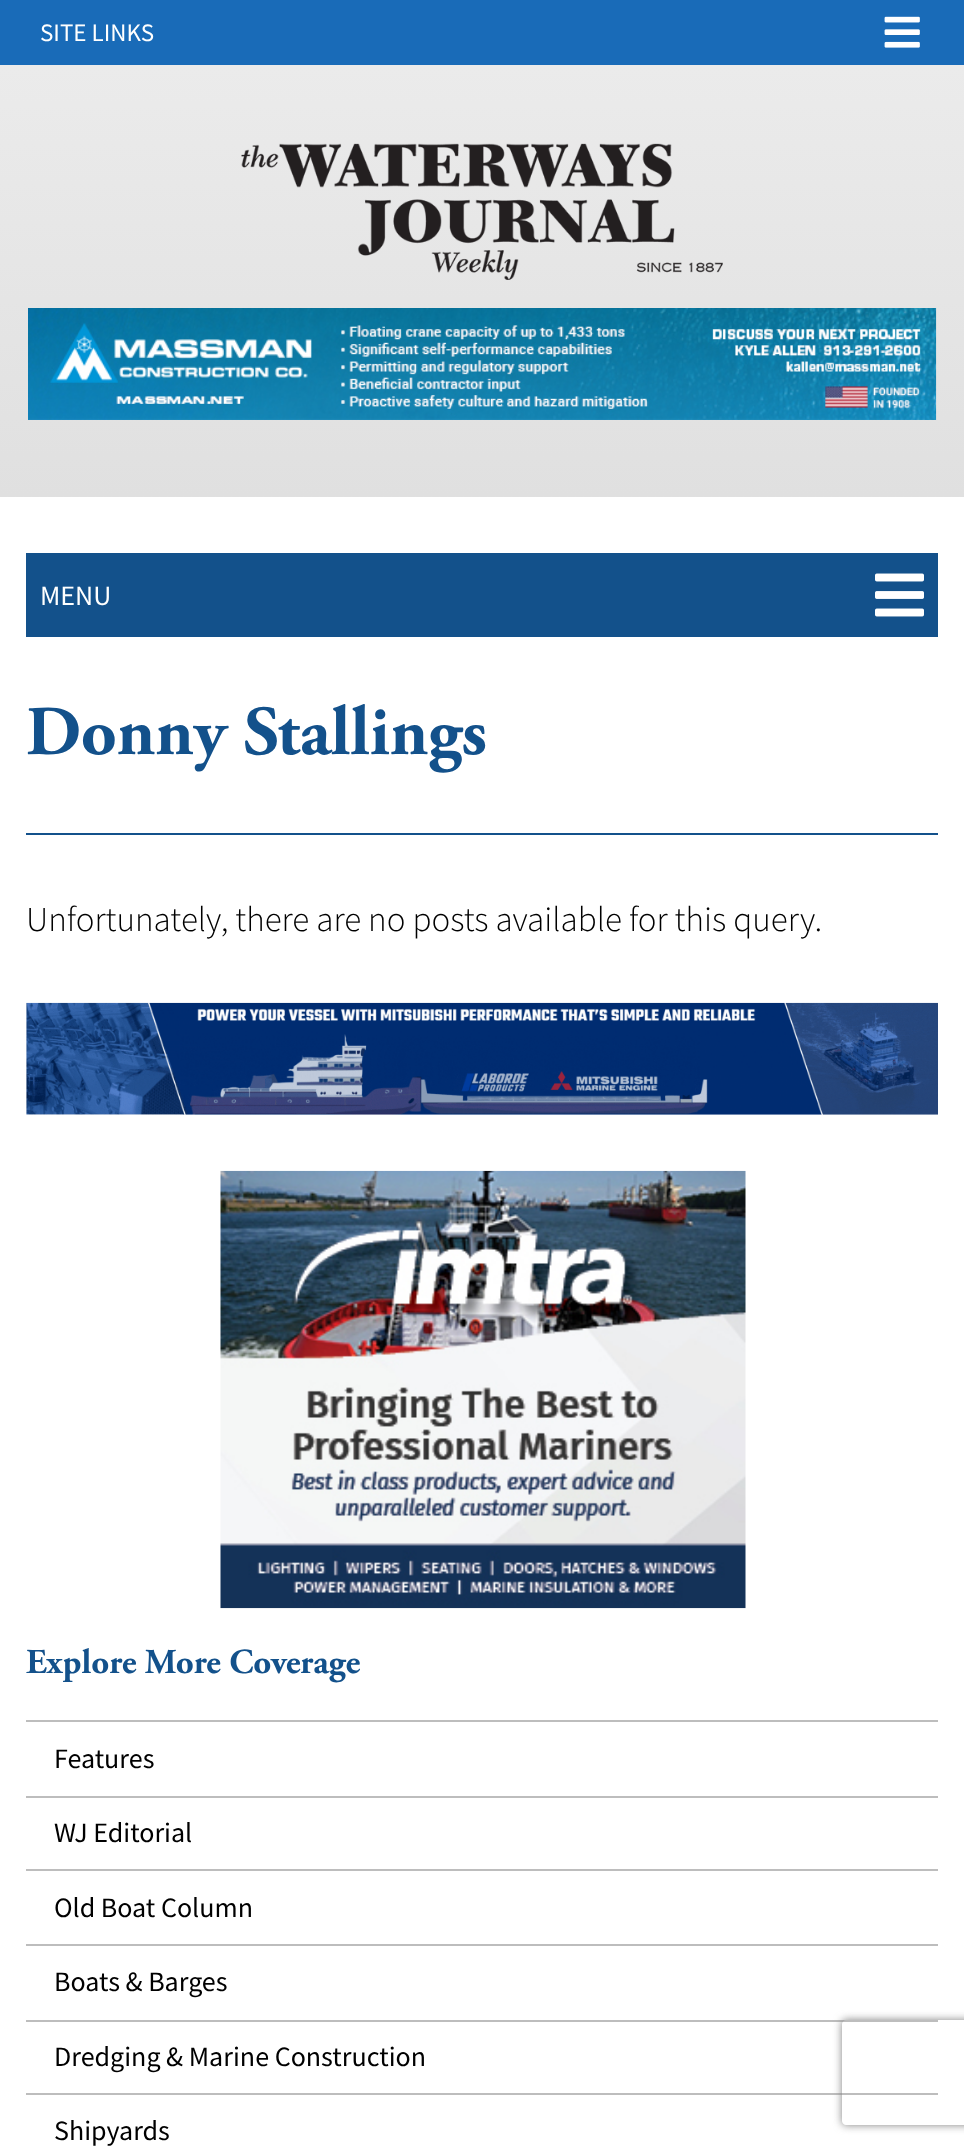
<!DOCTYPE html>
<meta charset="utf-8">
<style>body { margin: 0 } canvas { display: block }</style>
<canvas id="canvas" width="964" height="2148"></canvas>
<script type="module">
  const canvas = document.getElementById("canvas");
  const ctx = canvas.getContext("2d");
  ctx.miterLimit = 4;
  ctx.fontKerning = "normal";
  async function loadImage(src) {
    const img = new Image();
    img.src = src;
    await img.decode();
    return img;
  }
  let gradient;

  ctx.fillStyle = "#ffffff";
  ctx.fillRect(0, 0, 964, 2148);
  ctx.fillStyle = "#196bb8";
  ctx.fillRect(0, 0, 964, 65);
  ctx.font = "25px Source Sans Pro";
  ctx.fillStyle = "#ffffff";
  ctx.fillText("SITE LINKS", 40, 41);
  ctx.drawImage(await loadImage("img1.png"), 884, 16, 36, 32);
  gradient = ctx.createLinearGradient(482, 65, 482, 497);
  gradient.addColorStop(0, "#ebebeb");
  gradient.addColorStop(1, "#e0e0e0");
  ctx.fillStyle = gradient;
  ctx.fillRect(0, 65, 964, 432);
  ctx.drawImage(await loadImage("img2.png"), 241, 143, 482, 137);
  ctx.drawImage(await loadImage("img3.png"), 28, 308, 909, 112);
  ctx.fillStyle = "#13518b";
  ctx.fillRect(26, 553, 912, 84);
  ctx.font = "28px Source Sans Pro";
  ctx.fillStyle = "#ffffff";
  ctx.fillText("MENU", 40, 605);
  ctx.drawImage(await loadImage("img4.png"), 875, 573, 49, 44);
  ctx.fillStyle = "#13518b";
  ctx.fillRect(26, 833, 912, 2);
  ctx.font = "bold 70px Adobe Garamond";
  ctx.fillText("Donny Stallings", 26, 754);
  ctx.font = "300 35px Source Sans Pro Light";
  ctx.fillStyle = "#000000";
  ctx.fillText("Unfortunately, there are no posts available for this query.", 26, 931);
  ctx.drawImage(await loadImage("img5.png"), 26, 1002, 912, 113);
  ctx.drawImage(await loadImage("img6.png"), 220, 1170, 526, 439);
  ctx.font = "bold 35px Adobe Garamond";
  ctx.fillStyle = "#13518b";
  ctx.fillText("Explore More Coverage", 26, 1673);
  ctx.fillStyle = "#bdbdbd";
  ctx.fillRect(26, 1720, 912, 2);
  ctx.fillRect(26, 1796, 912, 2);
  ctx.font = "28px Source Sans Pro";
  ctx.fillStyle = "#000000";
  ctx.fillText("Features", 54, 1768);
  ctx.fillStyle = "#bdbdbd";
  ctx.fillRect(26, 1869, 912, 2);
  ctx.fillStyle = "#000000";
  ctx.fillText("WJ Editorial", 54, 1842);
  ctx.fillStyle = "#bdbdbd";
  ctx.fillRect(26, 1944, 912, 2);
  ctx.fillStyle = "#000000";
  ctx.fillText("Old Boat Column", 54, 1917);
  ctx.fillStyle = "#bdbdbd";
  ctx.fillRect(26, 2020, 912, 2);
  ctx.fillStyle = "#000000";
  ctx.fillText("Boats & Barges", 54, 1991);
  ctx.fillStyle = "#bdbdbd";
  ctx.fillRect(26, 2093, 912, 2);
  ctx.fillStyle = "#000000";
  ctx.fillText("Dredging & Marine Construction", 54, 2066);
  ctx.fillText("Shipyards", 54, 2140);
  ctx.save();
  ctx.beginPath();
  ctx.moveTo(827, 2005);
  ctx.lineTo(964, 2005);
  ctx.lineTo(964, 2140);
  ctx.lineTo(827, 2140);
  ctx.closePath();
  ctx.moveTo(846, 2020);
  ctx.lineTo(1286, 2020);
  ctx.bezierCurveTo(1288, 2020, 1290, 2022, 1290, 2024);
  ctx.lineTo(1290, 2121);
  ctx.bezierCurveTo(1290, 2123, 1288, 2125, 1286, 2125);
  ctx.lineTo(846, 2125);
  ctx.bezierCurveTo(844, 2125, 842, 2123, 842, 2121);
  ctx.lineTo(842, 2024);
  ctx.bezierCurveTo(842, 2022, 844, 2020, 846, 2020);
  ctx.closePath();
  ctx.clip("evenodd");
  ctx.fillStyle = "#808080";
  ctx.filter = "blur(4.5px)";
  ctx.beginPath();
  ctx.roundRect(842, 2020, 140, 105, 4);
  ctx.fill();
  ctx.filter = "none";
  ctx.restore();
</script>
